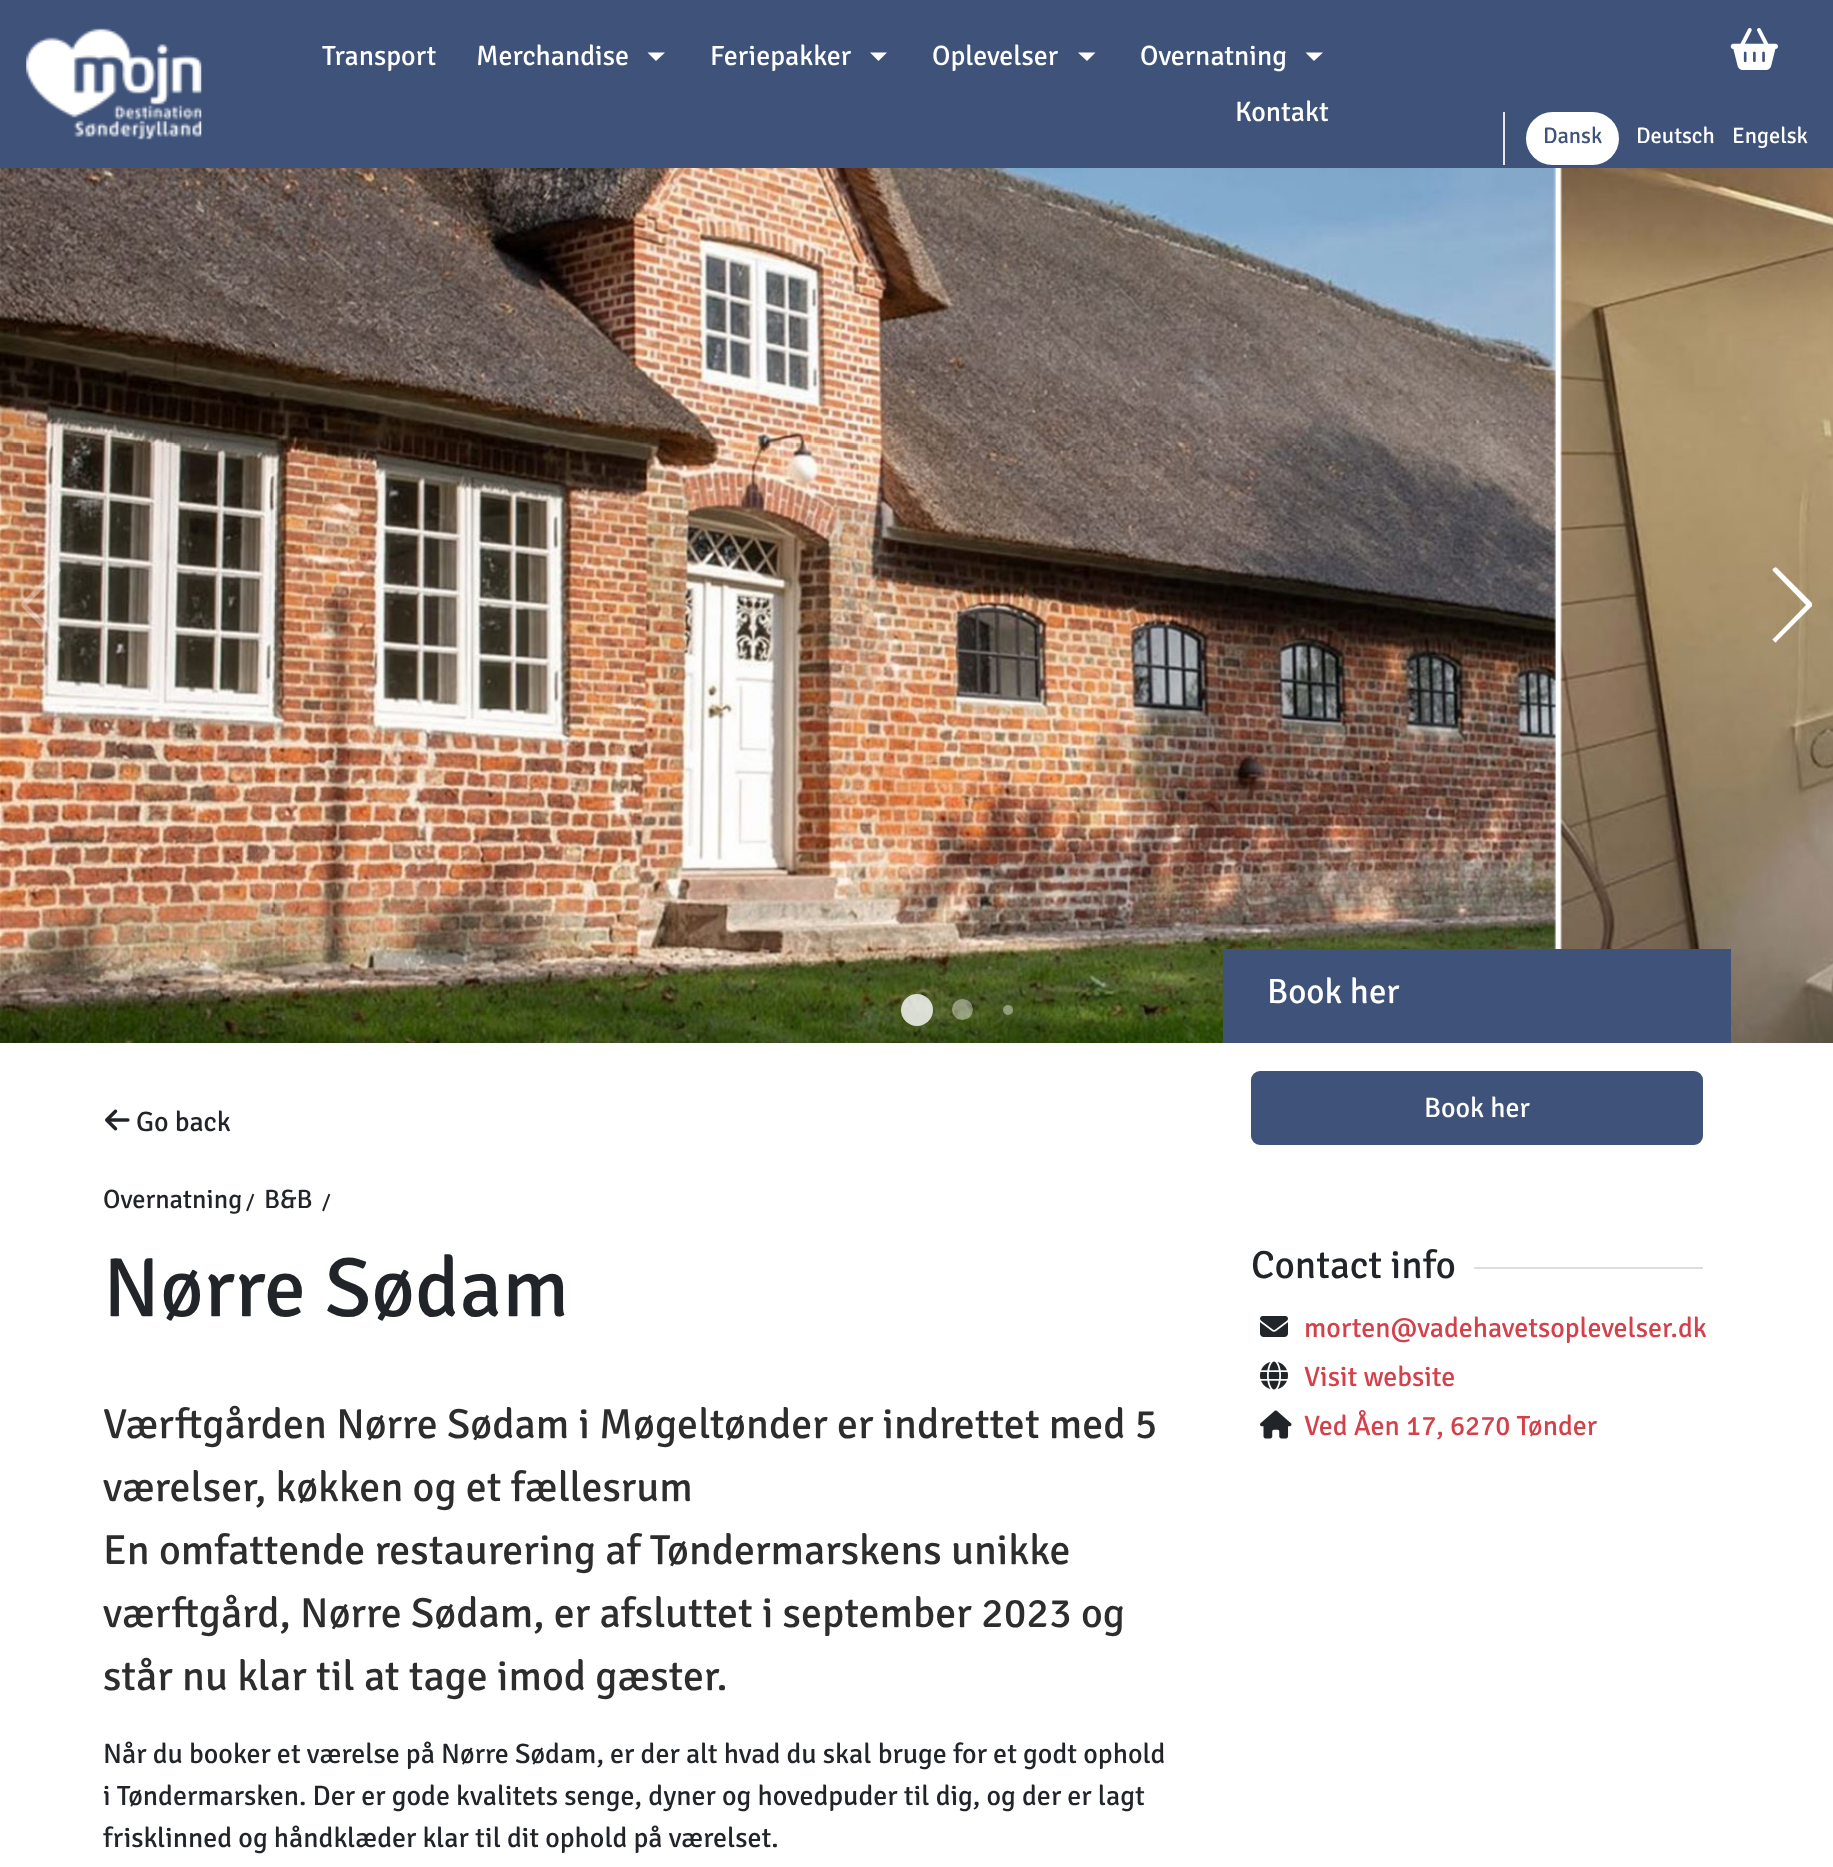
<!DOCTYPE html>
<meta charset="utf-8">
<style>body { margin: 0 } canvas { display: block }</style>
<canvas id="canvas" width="1833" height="1867"></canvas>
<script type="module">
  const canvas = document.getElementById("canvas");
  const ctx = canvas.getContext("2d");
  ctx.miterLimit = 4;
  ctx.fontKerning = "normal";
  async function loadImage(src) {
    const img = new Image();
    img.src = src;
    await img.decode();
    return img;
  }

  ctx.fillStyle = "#ffffff";
  ctx.fillRect(0, 0, 1833, 1867);
  ctx.fillStyle = "#3e527a";
  ctx.fillRect(0, 0, 1833, 168);
  ctx.drawImage(await loadImage("img1.png"), 26, 28, 176, 112);
  ctx.font = "28px Signika";
  ctx.fillStyle = "#ffffff";
  ctx.fillText("Transport", 322, 65);
  ctx.fillText("Merchandise", 476, 65);
  ctx.beginPath();
  ctx.moveTo(647.5, 52.5);
  ctx.lineTo(665, 52.5);
  ctx.lineTo(656, 61);
  ctx.closePath();
  ctx.fill();
  ctx.fillText("Feriepakker", 710, 65);
  ctx.beginPath();
  ctx.moveTo(870, 52.5);
  ctx.lineTo(887, 52.5);
  ctx.lineTo(878.5, 61);
  ctx.closePath();
  ctx.fill();
  ctx.fillText("Oplevelser", 932, 65);
  ctx.beginPath();
  ctx.moveTo(1078, 52.5);
  ctx.lineTo(1095.5, 52.5);
  ctx.lineTo(1087, 61);
  ctx.closePath();
  ctx.fill();
  ctx.fillText("Overnatning", 1140, 65);
  ctx.beginPath();
  ctx.moveTo(1305.5, 52.5);
  ctx.lineTo(1323, 52.5);
  ctx.lineTo(1314, 61);
  ctx.closePath();
  ctx.fill();
  ctx.fillText("Kontakt", 1235, 121);
  ctx.drawImage(await loadImage("img2.png"), 1730, 28, 48, 42);
  ctx.fillStyle = "#e6e9ee";
  ctx.fillRect(1503, 112, 2, 53);
  ctx.fillStyle = "#ffffff";
  ctx.beginPath();
  ctx.roundRect(1526, 112, 93, 53, 26.5);
  ctx.fill();
  ctx.font = "22.5px Signika";
  ctx.fillStyle = "#3e527a";
  ctx.fillText("Dansk", 1543, 143);
  ctx.fillStyle = "#ffffff";
  ctx.fillText("Deutsch", 1636, 143);
  ctx.fillText("Engelsk", 1732, 143);
  ctx.drawImage(await loadImage("img3.png"), 0, 168, 1556, 875);
  ctx.drawImage(await loadImage("img4.png"), 1560, 168, 273, 875);
  ctx.fillStyle = "rgba(255, 255, 255, 0.35)";
  ctx.beginPath();
  ctx.moveTo(56, 568);
  ctx.bezierCurveTo(58, 566, 61, 567, 61, 570);
  ctx.bezierCurveTo(61, 572, 31, 601, 27, 605);
  ctx.lineTo(60, 638);
  ctx.lineTo(61, 640);
  ctx.bezierCurveTo(59, 646, 54, 639, 50, 636);
  ctx.lineTo(28, 613);
  ctx.bezierCurveTo(19, 604, 19, 605, 28, 596);
  ctx.closePath();
  ctx.fill();
  ctx.fillStyle = "#ffffff";
  ctx.beginPath();
  ctx.moveTo(1774, 641);
  ctx.bezierCurveTo(1772, 640, 1772, 639, 1774, 638);
  ctx.lineTo(1806, 605);
  ctx.lineTo(1774, 572);
  ctx.bezierCurveTo(1772, 570, 1772, 569, 1774, 568);
  ctx.bezierCurveTo(1775, 567, 1776, 567, 1777, 568);
  ctx.lineTo(1811, 602);
  ctx.bezierCurveTo(1812, 603, 1812, 604, 1812, 605);
  ctx.bezierCurveTo(1812, 606, 1812, 607, 1811, 607);
  ctx.lineTo(1777, 641);
  ctx.bezierCurveTo(1776, 643, 1775, 643, 1774, 641);
  ctx.closePath();
  ctx.fill();
  ctx.fillStyle = "rgba(255, 255, 255, 0.8)";
  ctx.beginPath();
  ctx.arc(917, 1010, 16, 0, Math.PI * 2);
  ctx.fill();
  ctx.fillStyle = "rgba(255, 255, 255, 0.4)";
  ctx.beginPath();
  ctx.arc(962.5, 1009.5, 10.5, 0, Math.PI * 2);
  ctx.fill();
  ctx.beginPath();
  ctx.arc(1008, 1010, 5, 0, Math.PI * 2);
  ctx.fill();
  ctx.drawImage(await loadImage("img5.png"), 105, 1109, 25, 22);
  ctx.font = "28px Signika";
  ctx.fillStyle = "#212529";
  ctx.fillText("Go back", 136, 1131);
  ctx.font = "26.5px Signika";
  ctx.fillText("Overnatning", 103, 1208);
  ctx.font = "20px Signika";
  ctx.fillText("/", 246, 1208);
  ctx.font = "26.5px Signika";
  ctx.fillText("B&B", 264, 1208);
  ctx.font = "20px Signika";
  ctx.fillText("/", 322, 1208);
  ctx.font = "84px Signika";
  ctx.fillText("Nørre Sødam", 103, 1316);
  ctx.font = "42px Signika";
  ctx.fillStyle = "#2d2d2d";
  ctx.fillText("Værftgården Nørre Sødam i Møgeltønder er indrettet med 5", 103, 1438);
  ctx.fillText("værelser, køkken og et fællesrum", 103, 1501);
  ctx.fillText("En omfattende restaurering af Tøndermarskens unikke", 103, 1564);
  ctx.fillText("værftgård, Nørre Sødam, er afsluttet i september 2023 og", 103, 1627);
  ctx.fillText("står nu klar til at tage imod gæster.", 103, 1690);
  ctx.font = "28px Signika";
  ctx.fillStyle = "#212529";
  ctx.fillText("Når du booker et værelse på Nørre Sødam, er der alt hvad du skal bruge for et godt ophold", 103, 1763);
  ctx.fillText("i Tøndermarsken. Der er gode kvalitets senge, dyner og hovedpuder til dig, og der er lagt", 103, 1805);
  ctx.fillText("frisklinned og håndklæder klar til dit ophold på værelset.", 103, 1847);
  ctx.fillStyle = "#3e527a";
  ctx.fillRect(1223, 949, 508, 94);
  ctx.font = "35px Signika";
  ctx.fillStyle = "#ffffff";
  ctx.fillText("Book her", 1267, 1003);
  ctx.fillStyle = "#3e527a";
  ctx.beginPath();
  ctx.roundRect(1252, 1072, 450, 72, 8);
  ctx.fill();
  ctx.strokeStyle = "#3e527a";
  ctx.lineWidth = 2;
  ctx.stroke();
  ctx.font = "28px Signika";
  ctx.fillStyle = "#ffffff";
  ctx.fillText("Book her", 1424, 1117);
  ctx.font = "39.25px Signika";
  ctx.fillStyle = "#212529";
  ctx.fillText("Contact info", 1251, 1278);
  ctx.fillStyle = "#dddddd";
  ctx.fillRect(1474, 1267, 229, 2);
  ctx.drawImage(await loadImage("img6.png"), 1260, 1316, 28, 21);
  ctx.font = "28px Signika";
  ctx.fillStyle = "#d3414b";
  ctx.fillText("morten@vadehavetsoplevelser.dk", 1304, 1337);
  ctx.drawImage(await loadImage("img7.png"), 1260, 1361, 28, 29);
  ctx.fillText("Visit website", 1304, 1386);
  ctx.drawImage(await loadImage("img8.png"), 1260, 1410, 32, 29);
  ctx.fillText("Ved Åen 17, 6270 Tønder", 1304, 1435);
</script>
